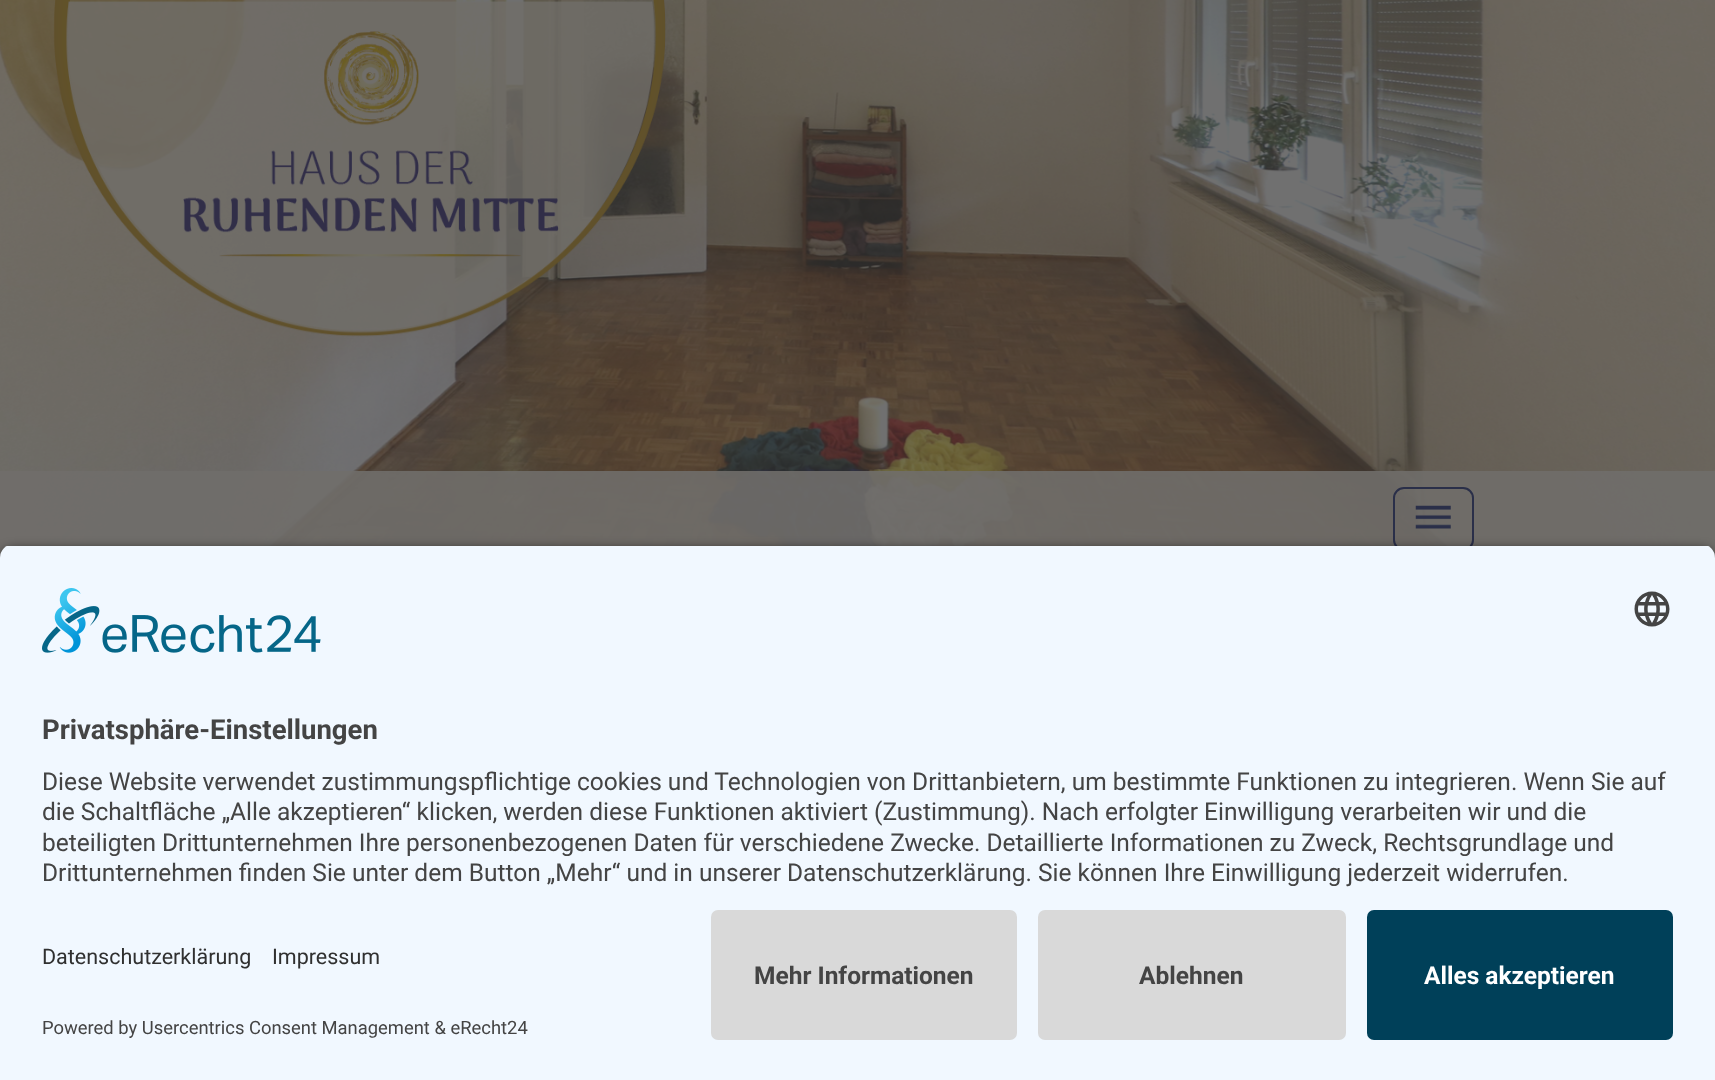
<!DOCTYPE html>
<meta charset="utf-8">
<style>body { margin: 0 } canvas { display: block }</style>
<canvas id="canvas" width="1715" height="1080"></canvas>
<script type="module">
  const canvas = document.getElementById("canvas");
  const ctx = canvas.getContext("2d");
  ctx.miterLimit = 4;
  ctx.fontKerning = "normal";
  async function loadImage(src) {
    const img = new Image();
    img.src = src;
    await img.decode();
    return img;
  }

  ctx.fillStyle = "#ffffff";
  ctx.fillRect(0, 0, 1715, 1080);
  ctx.drawImage(await loadImage("img1.png"), 0, 0, 1715, 558);
  ctx.drawImage(await loadImage("img2.png"), 53, 0, 613, 337);
  ctx.fillStyle = "rgba(112, 110, 106, 0.9)";
  ctx.fillRect(0, 471, 1715, 87);
  ctx.beginPath();
  ctx.roundRect(1394, 488, 79, 62, 10);
  ctx.strokeStyle = "#2a2f49";
  ctx.lineWidth = 2;
  ctx.stroke();
  ctx.drawImage(await loadImage("img3.png"), 1415, 505, 36, 24);
  ctx.fillStyle = "rgba(0, 0, 0, 0.8)";
  ctx.filter = "blur(6px)";
  ctx.beginPath();
  ctx.roundRect(0, 550, 1715, 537, 14);
  ctx.fill();
  ctx.filter = "none";
  ctx.save();
  ctx.beginPath();
  ctx.roundRect(0, 544, 1715, 352, [14, 14, 0, 0]);
  ctx.clip();
  ctx.fillStyle = "#f1f8ff";
  ctx.fillRect(0, 546, 1715, 350);
  ctx.restore();
  ctx.drawImage(await loadImage("img4.png"), 42, 588, 279, 65);
  ctx.drawImage(await loadImage("img5.png"), 1634, 591, 36, 36);
  ctx.font = "bold 27.5px Roboto";
  ctx.fillStyle = "#444444";
  ctx.fillText("Privatsphäre-Einstellungen", 42, 739);
  ctx.font = "24.5px Roboto";
  ctx.fillText("Diese Website verwendet zustimmungspflichtige cookies und Technologien von Drittanbietern, um bestimmte Funktionen zu integrieren. Wenn Sie auf", 42, 790);
  ctx.fillText("die Schaltfläche „Alle akzeptieren“ klicken, werden diese Funktionen aktiviert (Zustimmung). Nach erfolgter Einwilligung verarbeiten wir und die", 42, 820);
  ctx.fillText("beteiligten Drittunternehmen Ihre personenbezogenen Daten für verschiedene Zwecke. Detaillierte Informationen zu Zweck, Rechtsgrundlage und", 42, 851);
  ctx.fillText("Drittunternehmen finden Sie unter dem Button „Mehr“ und in unserer Datenschutzerklärung. Sie können Ihre Einwilligung jederzeit widerrufen.", 42, 881);
  ctx.fillStyle = "#f1f8ff";
  ctx.fillRect(0, 896, 1715, 184);
  ctx.font = "21.5px Roboto";
  ctx.fillStyle = "#303030";
  ctx.fillText("Datenschutzerklärung", 42, 964);
  ctx.fillText("Impressum", 272, 964);
  ctx.font = "18.4px Roboto";
  ctx.fillStyle = "#444444";
  ctx.fillText("Powered by Usercentrics Consent Management & eRecht24", 42, 1034);
  ctx.fillStyle = "#d9d9d9";
  ctx.beginPath();
  ctx.roundRect(711, 910, 306, 130, 7);
  ctx.fill();
  ctx.font = "bold 24.5px Roboto";
  ctx.fillStyle = "#444444";
  ctx.fillText("Mehr Informationen", 754, 984);
  ctx.fillStyle = "#d9d9d9";
  ctx.beginPath();
  ctx.roundRect(1038, 910, 308, 130, 7);
  ctx.fill();
  ctx.fillStyle = "#444444";
  ctx.fillText("Ablehnen", 1139, 984);
  ctx.fillStyle = "#004059";
  ctx.beginPath();
  ctx.roundRect(1367, 910, 306, 130, 7);
  ctx.fill();
  ctx.fillStyle = "#ffffff";
  ctx.fillText("Alles akzeptieren", 1424, 984);
</script>
